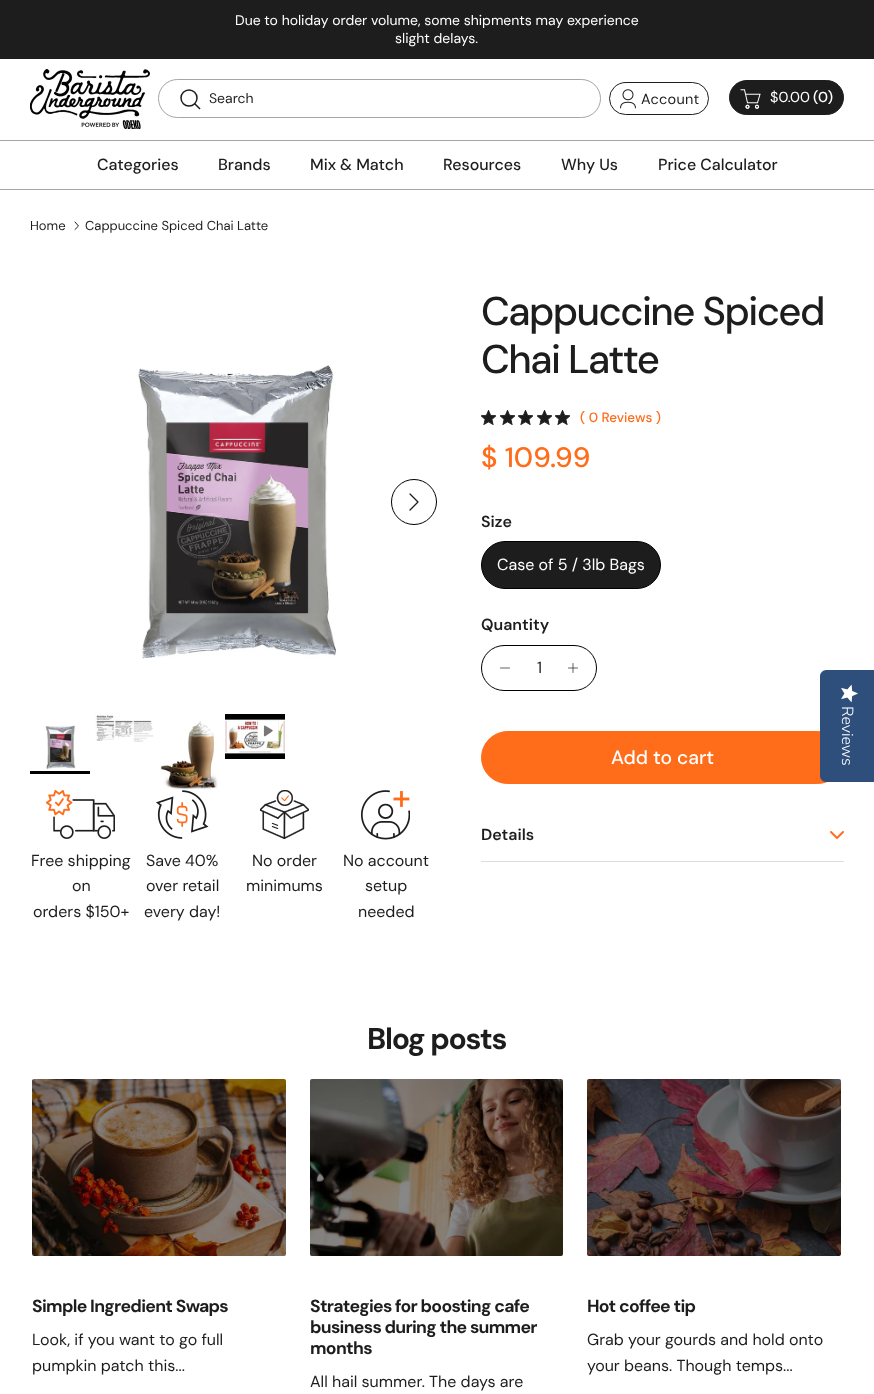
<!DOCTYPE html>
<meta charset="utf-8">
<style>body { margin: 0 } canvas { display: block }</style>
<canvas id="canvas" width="874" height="1394"></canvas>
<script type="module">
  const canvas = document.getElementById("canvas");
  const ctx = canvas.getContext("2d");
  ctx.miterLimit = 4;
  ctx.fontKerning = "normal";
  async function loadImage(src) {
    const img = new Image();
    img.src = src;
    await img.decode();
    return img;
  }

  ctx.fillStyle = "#ffffff";
  ctx.fillRect(0, 0, 874, 1394);
  ctx.fillStyle = "#1d1d1d";
  ctx.fillRect(0, 0, 874, 59);
  ctx.font = "14px DM Sans";
  ctx.fillStyle = "#ffffff";
  ctx.fillText("Due to holiday order volume, some shipments may experience", 235, 25);
  ctx.fillText("slight delays.", 395, 43);
  ctx.fillStyle = "#a5a5a5";
  ctx.fillRect(0, 140, 874, 1);
  ctx.drawImage(await loadImage("img1.png"), 30, 69, 120, 60);
  ctx.beginPath();
  ctx.roundRect(158.5, 79.5, 442, 38, 19);
  ctx.strokeStyle = "#a5a5a5";
  ctx.stroke();
  ctx.beginPath();
  ctx.arc(189, 98, 8, 0, Math.PI * 2);
  ctx.strokeStyle = "#1d1d1d";
  ctx.lineWidth = 1.5;
  ctx.stroke();
  ctx.beginPath();
  ctx.moveTo(195, 104);
  ctx.lineTo(199.5, 108.5);
  ctx.lineCap = "square";
  ctx.stroke();
  ctx.fillStyle = "#1d1d1d";
  ctx.fillText("Search", 209, 103);
  ctx.beginPath();
  ctx.roundRect(609.5, 82.5, 99, 32, 16);
  ctx.lineWidth = 1;
  ctx.stroke();
  ctx.drawImage(await loadImage("img2.png"), 620, 89, 16, 20);
  ctx.letterSpacing = "0.25px";
  ctx.font = "14.5px DM Sans";
  ctx.fillText("Account", 641, 104);
  ctx.beginPath();
  ctx.roundRect(729.5, 80.5, 114, 34, 17);
  ctx.fill();
  ctx.stroke();
  ctx.drawImage(await loadImage("img3.png"), 740, 89, 21, 20);
  ctx.letterSpacing = "0px";
  ctx.fillStyle = "#ffffff";
  ctx.fillText("$0.00", 770, 102);
  ctx.font = "500 14.5px DM Sans";
  ctx.fillText("(0)", 813, 102);
  ctx.fillStyle = "#a5a5a5";
  ctx.fillRect(0, 189, 874, 1);
  ctx.font = "500 16px DM Sans";
  ctx.fillStyle = "#1d1d1d";
  ctx.fillText("Categories", 97, 170);
  ctx.fillText("Brands", 218, 170);
  ctx.fillText("Mix & Match", 310, 170);
  ctx.fillText("Resources", 443, 170);
  ctx.fillText("Why Us", 561, 170);
  ctx.fillText("Price Calculator", 658, 170);
  ctx.font = "13px DM Sans";
  ctx.fillText("Home", 30, 230);
  ctx.beginPath();
  ctx.moveTo(75, 229.5);
  ctx.lineTo(78.5, 226);
  ctx.lineTo(75, 222);
  ctx.lineCap = "round";
  ctx.lineJoin = "round";
  ctx.stroke();
  ctx.fillText("Cappuccine Spiced Chai Latte", 85, 230);
  ctx.letterSpacing = "-1.6px";
  ctx.font = "500 40px DM Sans";
  ctx.fillText("Cappuccine Spiced", 481, 325);
  ctx.fillText("Chai Latte", 481, 373);
  ctx.drawImage(await loadImage("img4.png"), 481, 410, 15, 15);
  ctx.drawImage(await loadImage("img4.png"), 500, 410, 15, 15);
  ctx.drawImage(await loadImage("img4.png"), 518, 410, 15, 15);
  ctx.drawImage(await loadImage("img4.png"), 537, 410, 15, 15);
  ctx.drawImage(await loadImage("img4.png"), 555, 410, 15, 15);
  ctx.letterSpacing = "0px";
  ctx.font = "500 13.5px DM Sans";
  ctx.fillStyle = "#ff6c1a";
  ctx.fillText("( 0 Reviews )", 580, 422);
  ctx.font = "500 28px DM Sans";
  ctx.fillText("$ 109.99", 481, 467);
  ctx.font = "600 16px DM Sans";
  ctx.fillStyle = "#1d1d1d";
  ctx.fillText("Size", 481, 527);
  ctx.beginPath();
  ctx.roundRect(481.5, 541.5, 179, 47, 23.5);
  ctx.fill();
  ctx.strokeStyle = "#000000";
  ctx.lineJoin = "miter";
  ctx.stroke();
  ctx.font = "16px DM Sans";
  ctx.fillStyle = "#ffffff";
  ctx.fillText("Case of 5 / 3lb Bags", 497, 570);
  ctx.font = "600 16px DM Sans";
  ctx.fillStyle = "#1d1d1d";
  ctx.fillText("Quantity", 481, 630);
  ctx.beginPath();
  ctx.roundRect(481.5, 645.5, 115, 45, 22.5);
  ctx.stroke();
  ctx.beginPath();
  ctx.moveTo(500.5, 668);
  ctx.lineTo(509.5, 668);
  ctx.strokeStyle = "#1d1d1d";
  ctx.lineWidth = 0.7;
  ctx.lineJoin = "round";
  ctx.stroke();
  ctx.font = "16px DM Sans";
  ctx.fillText("1", 537, 673);
  ctx.beginPath();
  ctx.moveTo(573, 663.5);
  ctx.lineTo(573, 672.5);
  ctx.moveTo(568.5, 668);
  ctx.lineTo(577.5, 668);
  ctx.stroke();
  ctx.fillStyle = "#ff6c1a";
  ctx.beginPath();
  ctx.roundRect(481.5, 731.5, 362, 52, 26);
  ctx.fill();
  ctx.strokeStyle = "#ff6c1a";
  ctx.lineWidth = 1;
  ctx.lineJoin = "miter";
  ctx.stroke();
  ctx.font = "500 19.25px DM Sans";
  ctx.fillStyle = "#ffffff";
  ctx.fillText("Add to cart", 611, 764);
  ctx.fillStyle = "#dddddd";
  ctx.fillRect(481, 861, 363, 1);
  ctx.font = "600 16px DM Sans";
  ctx.fillStyle = "#1d1d1d";
  ctx.fillText("Details", 481, 840);
  ctx.drawImage(await loadImage("img5.png"), 830, 831, 14, 8);
  ctx.drawImage(await loadImage("img6.png"), 138, 365, 199, 294);
  ctx.beginPath();
  ctx.arc(414, 502, 22.5, 0, Math.PI * 2);
  ctx.strokeStyle = "#000000";
  ctx.stroke();
  ctx.beginPath();
  ctx.moveTo(410, 510);
  ctx.lineTo(418, 502);
  ctx.lineTo(410, 494);
  ctx.strokeStyle = "#1d1d1d";
  ctx.lineWidth = 1.3;
  ctx.lineJoin = "round";
  ctx.stroke();
  ctx.drawImage(await loadImage("img7.png"), 45, 725, 31, 44);
  ctx.fillStyle = "#000000";
  ctx.fillRect(30, 771, 60, 3);
  ctx.drawImage(await loadImage("img8.png"), 95, 714, 59, 28);
  ctx.drawImage(await loadImage("img9.png"), 160, 720, 58, 70);
  ctx.drawImage(await loadImage("img10.png"), 225, 714, 60, 45);
  ctx.drawImage(await loadImage("img11.png"), 257, 720, 22, 22);
  ctx.drawImage(await loadImage("img12.png"), 46, 790, 69, 49);
  ctx.font = "16px DM Sans";
  ctx.fillStyle = "#1d1d1d";
  ctx.fillText("Free shipping", 31, 866);
  ctx.fillText("on", 72, 891);
  ctx.fillText("orders $150+", 33, 917);
  ctx.drawImage(await loadImage("img13.png"), 156, 790, 53, 49);
  ctx.fillText("Save 40%", 146, 866);
  ctx.fillText("over retail", 146, 891);
  ctx.fillText("every day!", 144, 917);
  ctx.drawImage(await loadImage("img14.png"), 260, 790, 49, 49);
  ctx.fillText("No order", 252, 866);
  ctx.fillText("minimums", 246, 891);
  ctx.drawImage(await loadImage("img15.png"), 361, 790, 49, 50);
  ctx.fillText("No account", 343, 866);
  ctx.fillText("setup", 365, 891);
  ctx.fillText("needed", 358, 917);
  ctx.letterSpacing = "-1.25px";
  ctx.font = "bold 30px DM Sans";
  ctx.fillText("Blog posts", 367, 1049);
  ctx.drawImage(await loadImage("img16.png"), 32, 1079, 254, 177);
  ctx.letterSpacing = "-0.7px";
  ctx.font = "bold 17.6px DM Sans";
  ctx.fillText("Simple Ingredient Swaps", 32, 1312);
  ctx.letterSpacing = "0px";
  ctx.font = "16px DM Sans";
  ctx.fillText("Look, if you want to go full", 32, 1345);
  ctx.fillText("pumpkin patch this...", 32, 1371);
  ctx.drawImage(await loadImage("img17.png"), 310, 1079, 253, 177);
  ctx.letterSpacing = "-0.7px";
  ctx.font = "bold 17.6px DM Sans";
  ctx.fillText("Strategies for boosting cafe", 310, 1312);
  ctx.fillText("business during the summer", 310, 1333);
  ctx.fillText("months", 310, 1354);
  ctx.letterSpacing = "0px";
  ctx.font = "16px DM Sans";
  ctx.fillText("All hail summer. The days are", 310, 1387);
  ctx.drawImage(await loadImage("img18.png"), 587, 1079, 254, 177);
  ctx.letterSpacing = "-0.7px";
  ctx.font = "bold 17.6px DM Sans";
  ctx.fillText("Hot coffee tip", 587, 1312);
  ctx.letterSpacing = "0px";
  ctx.font = "16px DM Sans";
  ctx.fillText("Grab your gourds and hold onto", 587, 1345);
  ctx.fillText("your beans. Though temps...", 587, 1371);
  ctx.fillStyle = "#2e4f7c";
  ctx.beginPath();
  ctx.moveTo(874, 670);
  ctx.lineTo(874, 782);
  ctx.lineTo(826, 782);
  ctx.bezierCurveTo(823, 782, 820, 779, 820, 776);
  ctx.lineTo(820, 676);
  ctx.bezierCurveTo(820, 673, 823, 670, 826, 670);
  ctx.closePath();
  ctx.fill();
  ctx.drawImage(await loadImage("img19.png"), 841, 684, 17, 19);
  ctx.font = "300 16px Nunito Sans";
  ctx.fillStyle = "#ffffff";
  ctx.save();
  ctx.translate(842, 706);
  ctx.rotate(90 * Math.PI / 180);
  ctx.fillText("Reviews", 0, 0);
  ctx.restore();
</script>
